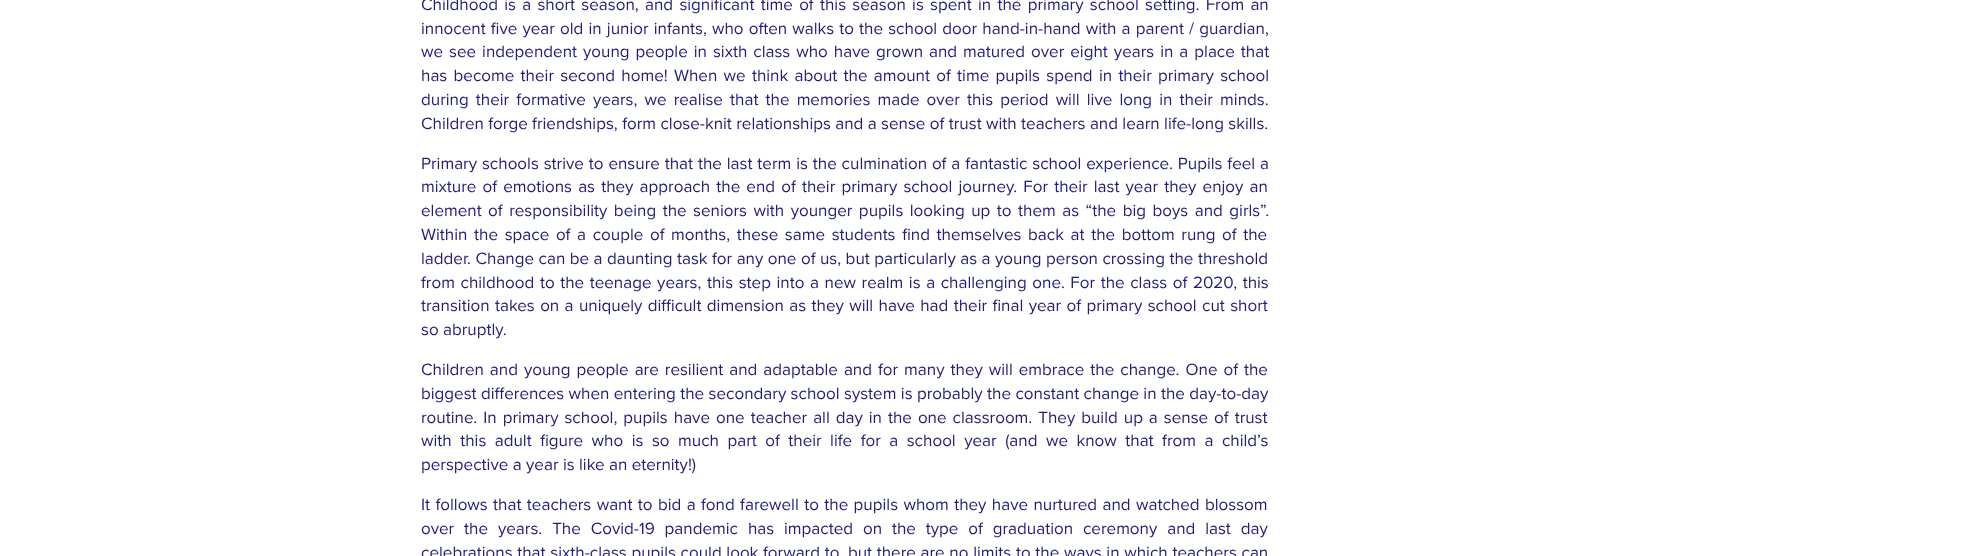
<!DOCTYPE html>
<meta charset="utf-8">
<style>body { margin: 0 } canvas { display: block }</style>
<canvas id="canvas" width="1982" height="556"></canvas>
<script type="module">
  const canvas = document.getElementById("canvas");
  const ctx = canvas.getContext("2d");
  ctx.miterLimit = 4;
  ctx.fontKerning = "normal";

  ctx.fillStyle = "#ffffff";
  ctx.fillRect(0, 0, 1982, 556);
  ctx.wordSpacing = "1.9px";
  ctx.font = "17px Proxima Nova";
  ctx.fillStyle = "#221f73";
  ctx.fillText("Childhood is a short season, and significant time of this season is spent in the primary school setting. From an", 421, 10);
  ctx.wordSpacing = "0.75px";
  ctx.fillText("innocent five year old in junior infants, who often walks to the school door hand-in-hand with a parent / guardian,", 421, 34);
  ctx.wordSpacing = "1.6px";
  ctx.fillText("we see independent young people in sixth class who have grown and matured over eight years in a place that", 421, 57);
  ctx.wordSpacing = "1.9px";
  ctx.fillText("has become their second home! When we think about the amount of time pupils spend in their primary school", 421, 81);
  ctx.wordSpacing = "2.75px";
  ctx.fillText("during their formative years, we realise that the memories made over this period will live long in their minds.", 421, 105);
  ctx.wordSpacing = "0px";
  ctx.fillText("Children forge friendships, form close-knit relationships and a sense of trust with teachers and learn life-long skills.", 421, 129);
  ctx.wordSpacing = "0.5px";
  ctx.fillText("Primary schools strive to ensure that the last term is the culmination of a fantastic school experience. Pupils feel a", 421, 169);
  ctx.wordSpacing = "1.75px";
  ctx.fillText("mixture of emotions as they approach the end of their primary school journey. For their last year they enjoy an", 421, 192);
  ctx.wordSpacing = "2.1px";
  ctx.fillText("element of responsibility being the seniors with younger pupils looking up to them as “the big boys and girls”.", 421, 216);
  ctx.wordSpacing = "2.25px";
  ctx.fillText("Within the space of a couple of months, these same students find themselves back at the bottom rung of the", 421, 240);
  ctx.wordSpacing = "0.1px";
  ctx.fillText("ladder. Change can be a daunting task for any one of us, but particularly as a young person crossing the threshold", 421, 264);
  ctx.wordSpacing = "1.2px";
  ctx.fillText("from childhood to the teenage years, this step into a new realm is a challenging one. For the class of 2020, this", 421, 288);
  ctx.wordSpacing = "1px";
  ctx.fillText("transition takes on a uniquely difficult dimension as they will have had their final year of primary school cut short", 421, 311);
  ctx.wordSpacing = "0px";
  ctx.fillText("so abruptly.", 421, 335);
  ctx.wordSpacing = "1.6px";
  ctx.fillText("Children and young people are resilient and adaptable and for many they will embrace the change. One of the", 421, 375);
  ctx.wordSpacing = "0px";
  ctx.fillText("biggest differences when entering the secondary school system is probably the constant change in the day-to-day", 421, 399);
  ctx.wordSpacing = "1.6px";
  ctx.fillText("routine. In primary school, pupils have one teacher all day in the one classroom. They build up a sense of trust", 421, 423);
  ctx.wordSpacing = "4.1px";
  ctx.fillText("with this adult figure who is so much part of their life for a school year (and we know that from a child’s", 421, 446);
  ctx.wordSpacing = "0px";
  ctx.fillText("perspective a year is like an eternity!)", 421, 470);
  ctx.wordSpacing = "1px";
  ctx.fillText("It follows that teachers want to bid a fond farewell to the pupils whom they have nurtured and watched blossom", 421, 510);
  ctx.wordSpacing = "5.5px";
  ctx.fillText("over the years. The Covid-19 pandemic has impacted on the type of graduation ceremony and last day", 421, 534);
  ctx.wordSpacing = "0.3px";
  ctx.fillText("celebrations that sixth-class pupils could look forward to, but there are no limits to the ways in which teachers can", 421, 558);
</script>
